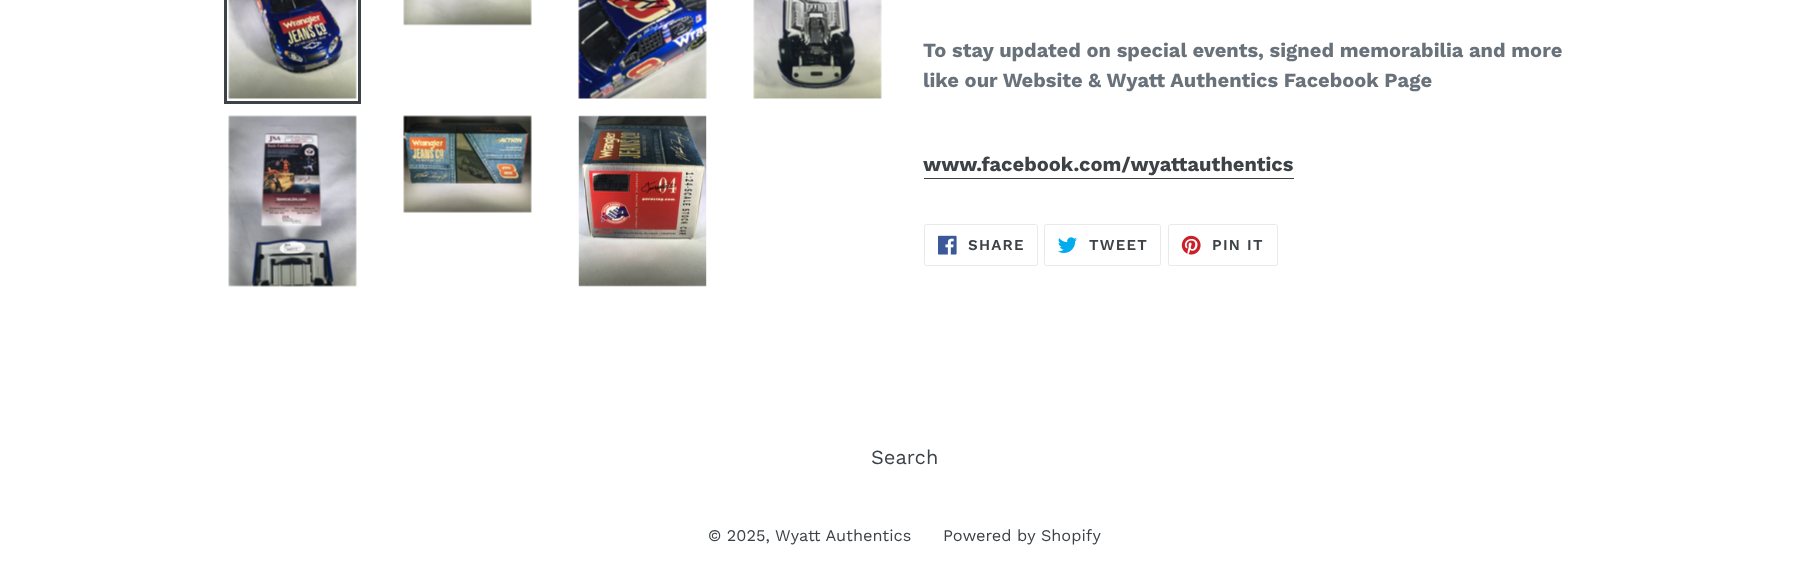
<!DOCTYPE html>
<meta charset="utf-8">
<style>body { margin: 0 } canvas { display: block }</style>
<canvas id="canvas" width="1808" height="573"></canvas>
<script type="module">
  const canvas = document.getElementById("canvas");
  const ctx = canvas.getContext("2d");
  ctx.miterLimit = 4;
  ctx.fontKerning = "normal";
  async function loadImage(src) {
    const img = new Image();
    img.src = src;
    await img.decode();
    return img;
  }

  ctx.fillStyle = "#ffffff";
  ctx.fillRect(0, 0, 1808, 573);
  ctx.strokeStyle = "#3d4246";
  ctx.lineWidth = 3;
  ctx.strokeRect(225.5, -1.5, 134, 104);
  ctx.drawImage(await loadImage("img1.png"), 228, 0, 129, 99);
  ctx.drawImage(await loadImage("img2.png"), 403, 0, 129, 26);
  ctx.drawImage(await loadImage("img3.png"), 578, 0, 129, 99);
  ctx.drawImage(await loadImage("img4.png"), 753, 0, 129, 99);
  ctx.drawImage(await loadImage("img5.png"), 228, 115, 129, 172);
  ctx.drawImage(await loadImage("img6.png"), 403, 115, 129, 98);
  ctx.drawImage(await loadImage("img7.png"), 578, 115, 129, 172);
  ctx.font = "bold 20px Work Sans";
  ctx.fillStyle = "#69727b";
  ctx.fillText("To stay updated on special events, signed memorabilia and more", 923, 57);
  ctx.fillText("like our Website & Wyatt Authentics Facebook Page", 923, 87);
  ctx.fillStyle = "#3d4246";
  ctx.fillText("www.facebook.com/wyattauthentics", 923, 171);
  ctx.fillRect(924, 178, 370, 1);
  ctx.beginPath();
  ctx.roundRect(924.5, 224.5, 113, 41, 2);
  ctx.strokeStyle = "#e8e9eb";
  ctx.lineWidth = 1;
  ctx.stroke();
  ctx.drawImage(await loadImage("img8.png"), 938, 235, 19, 20);
  ctx.letterSpacing = "1.25px";
  ctx.font = "600 15px Work Sans";
  ctx.fillText("SHARE", 968, 250);
  ctx.beginPath();
  ctx.roundRect(1044.5, 224.5, 116, 41, 2);
  ctx.stroke();
  ctx.drawImage(await loadImage("img9.png"), 1058, 237, 19, 16);
  ctx.fillText("TWEET", 1089, 250);
  ctx.beginPath();
  ctx.roundRect(1168.5, 224.5, 109, 41, 2);
  ctx.stroke();
  ctx.drawImage(await loadImage("img10.png"), 1181, 235, 20, 20);
  ctx.fillText("PIN IT", 1212, 250);
  ctx.letterSpacing = "0px";
  ctx.font = "20px Work Sans";
  ctx.fillText("Search", 871, 464);
  ctx.font = "16.25px Work Sans";
  ctx.fillText("© 2025,", 708, 541);
  ctx.fillText("Wyatt Authentics", 775, 541);
  ctx.fillText("Powered by Shopify", 943, 541);
</script>
